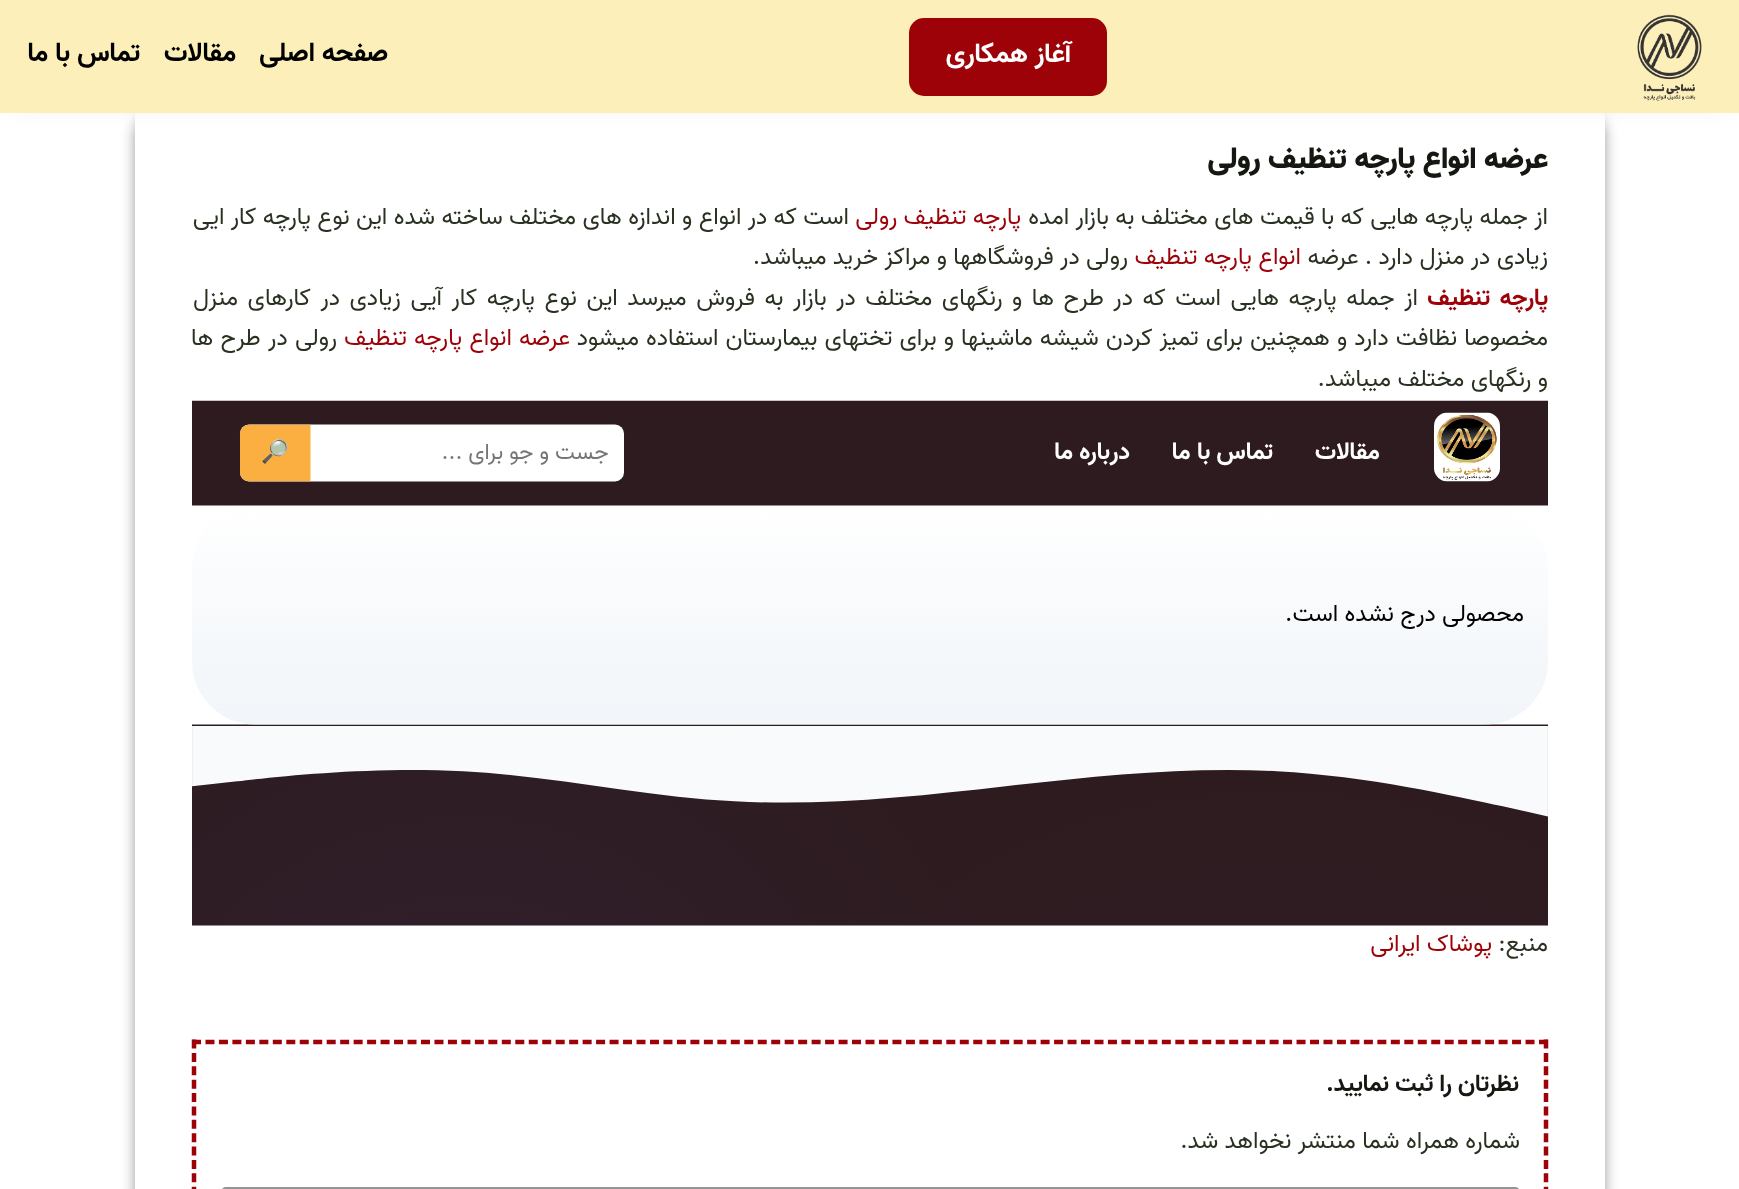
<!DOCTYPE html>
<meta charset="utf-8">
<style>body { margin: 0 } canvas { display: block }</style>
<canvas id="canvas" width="1739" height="1189"></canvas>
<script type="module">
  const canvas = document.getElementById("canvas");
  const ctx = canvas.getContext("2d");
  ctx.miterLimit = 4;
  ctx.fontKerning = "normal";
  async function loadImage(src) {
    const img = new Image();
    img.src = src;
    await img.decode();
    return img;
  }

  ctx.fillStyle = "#ffffff";
  ctx.fillRect(0, 0, 1739, 1189);
  ctx.fillStyle = "rgba(0, 0, 0, 0.1)";
  ctx.filter = "blur(11px)";
  ctx.beginPath();
  ctx.rect(15, 23, 1710, 82);
  ctx.fill();
  ctx.filter = "none";
  ctx.save();
  ctx.beginPath();
  ctx.moveTo(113, 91);
  ctx.lineTo(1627, 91);
  ctx.lineTo(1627, 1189);
  ctx.lineTo(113, 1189);
  ctx.closePath();
  ctx.moveTo(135, 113);
  ctx.lineTo(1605, 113);
  ctx.lineTo(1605, 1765);
  ctx.bezierCurveTo(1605, 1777.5, 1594.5, 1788, 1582, 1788);
  ctx.lineTo(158, 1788);
  ctx.bezierCurveTo(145.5, 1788, 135, 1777.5, 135, 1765);
  ctx.closePath();
  ctx.clip("evenodd");
  ctx.fillStyle = "rgba(136, 136, 136, 0.84)";
  ctx.filter = "blur(7px)";
  ctx.beginPath();
  ctx.roundRect(135, 113, 1470, 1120, 23);
  ctx.fill();
  ctx.filter = "none";
  ctx.restore();
  ctx.fillStyle = "#fcefba";
  ctx.fillRect(0, 0, 1739, 113);
  ctx.drawImage(await loadImage("img1.png"), 1637, 14, 65, 87);
  ctx.fillStyle = "#9d0208";
  ctx.beginPath();
  ctx.roundRect(909, 18, 198, 78, 15);
  ctx.fill();
  ctx.direction = "rtl";
  ctx.font = "bold 27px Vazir";
  ctx.fillStyle = "#ffffff";
  ctx.fillText("آغاز همکاری", 1071, 62);
  ctx.fillStyle = "#000000";
  ctx.fillText("صفحه اصلی", 388, 61);
  ctx.fillText("مقالات", 236, 61);
  ctx.fillText("تماس با ما", 140, 61);
  ctx.font = "900 30px Vazir";
  ctx.fillStyle = "#141810";
  ctx.fillText("عرضه انواع پارچه تنظیف رولی", 1548, 168);
  ctx.font = "24px Vazir";
  ctx.fillStyle = "#293121";
  ctx.fillText("از جمله پارچه هایی که با قیمت های مختلف به بازار امده", 1548, 224);
  ctx.fillStyle = "#9d0208";
  ctx.fillText("پارچه تنظیف رولی", 1021, 224);
  ctx.fillStyle = "#293121";
  ctx.fillText("است که در انواع و اندازه های مختلف ساخته شده این نوع پارچه کار ایی", 849, 224);
  ctx.fillText("زیادی در منزل دارد . عرضه", 1548, 264);
  ctx.fillStyle = "#9d0208";
  ctx.fillText("انواع پارچه تنظیف", 1301, 264);
  ctx.fillStyle = "#293121";
  ctx.fillText("رولی در فروشگاهها و مراکز خرید میباشد.", 1128, 264);
  ctx.wordSpacing = "3.2px";
  ctx.font = "bold 24px Vazir";
  ctx.fillStyle = "#9d0208";
  ctx.fillText("پارچه تنظیف", 1548, 305);
  ctx.font = "24px Vazir";
  ctx.fillStyle = "#293121";
  ctx.fillText("از جمله پارچه هایی است که در طرح ها و رنگهای مختلف در بازار به فروش میرسد این نوع پارچه کار آیی زیادی در کارهای منزل", 1418, 305);
  ctx.wordSpacing = "0.7px";
  ctx.fillText("مخصوصا نظافت دارد و همچنین برای تمیز کردن شیشه ماشینها و برای تختهای بیمارستان استفاده میشود", 1548, 345);
  ctx.fillStyle = "#9d0208";
  ctx.fillText("عرضه انواع پارچه تنظیف", 570, 345);
  ctx.wordSpacing = "1px";
  ctx.fillStyle = "#293121";
  ctx.fillText("رولی در طرح ها", 337, 345);
  ctx.wordSpacing = "0px";
  ctx.fillText("و رنگهای مختلف میباشد.", 1548, 386);
  ctx.drawImage(await loadImage("img2.png"), 192, 400, 1356, 526);
  ctx.fillText("منبع:", 1548, 951);
  ctx.fillStyle = "#9d0208";
  ctx.fillText("پوشاک ایرانی", 1492, 951);
  ctx.beginPath();
  ctx.moveTo(192, 1042);
  ctx.lineTo(1548, 1042);
  ctx.strokeStyle = "#9d0208";
  ctx.lineWidth = 4.5;
  ctx.setLineDash([9, 4.47]);
  ctx.stroke();
  ctx.beginPath();
  ctx.moveTo(1546, 1039.5);
  ctx.lineTo(1546, 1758);
  ctx.setLineDash([9, 4.38]);
  ctx.stroke();
  ctx.beginPath();
  ctx.moveTo(194, 1039.5);
  ctx.lineTo(194, 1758);
  ctx.stroke();
  ctx.font = "bold 24px Vazir";
  ctx.fillStyle = "#141810";
  ctx.fillText("نظرتان را ثبت نمایید.", 1519, 1091);
  ctx.font = "24px Vazir";
  ctx.fillStyle = "#293121";
  ctx.fillText("شماره همراه شما منتشر نخواهد شد.", 1520, 1148);
  ctx.beginPath();
  ctx.roundRect(222, 1188, 1297, 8, 5);
  ctx.strokeStyle = "#949494";
  ctx.lineWidth = 2;
  ctx.setLineDash([]);
  ctx.stroke();
</script>
